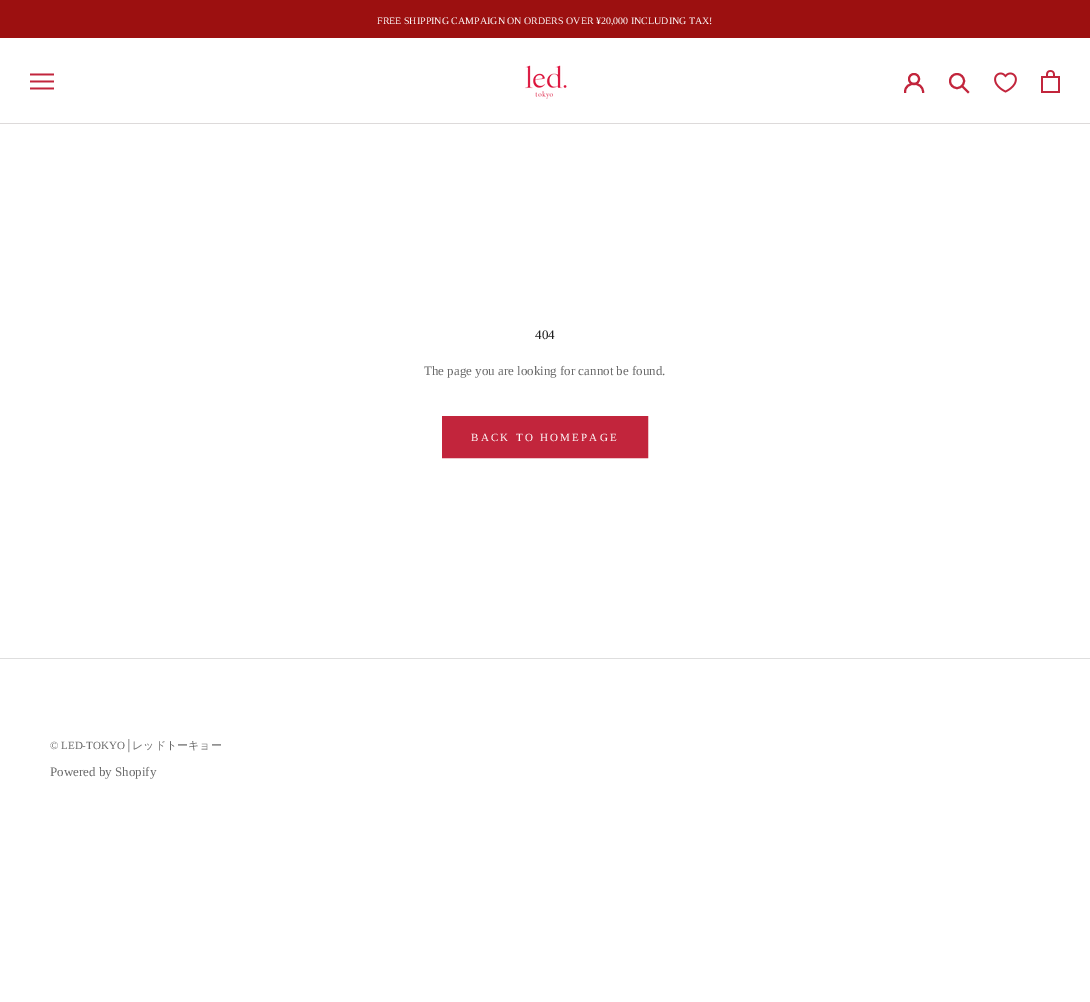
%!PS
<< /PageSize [1090 1002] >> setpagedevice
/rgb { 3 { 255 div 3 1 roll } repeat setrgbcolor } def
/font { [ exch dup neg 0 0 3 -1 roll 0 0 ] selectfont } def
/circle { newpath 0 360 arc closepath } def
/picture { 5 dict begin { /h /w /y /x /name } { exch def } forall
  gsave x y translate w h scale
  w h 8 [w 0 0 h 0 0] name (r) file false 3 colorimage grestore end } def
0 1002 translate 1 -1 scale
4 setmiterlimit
255 255 255 rgb
0 0 1090 1002 rectfill
156 16 16 rgb
0 0 1090 38 rectfill
221 218 218 rgb
0 123 1090 1 rectfill
(img/1.rgb) 30 73 24 17 picture
(img/2.rgb) 525 65 42 34 picture
194 37 60 rgb
2 setlinewidth
2 setlinecap
905 92 moveto 905 81 923 81 923 92 curveto stroke
0 setlinecap
914 79 5 circle stroke
2 setlinecap
968 92 moveto 962.5 86.5 lineto stroke
0 setlinecap
957 81 7 circle stroke
(img/3.rgb) 994 72 23 21 picture
(img/4.rgb) 1041 70 19 23 picture
1 setlinewidth
442.5 416.5 205 41 rectstroke
443 417 204 40 rectfill
222 222 222 rgb
0 658 1090 1 rectfill
/LiberationSerif-Regular 10 font
255 255 255 rgb
377 24 moveto (FREE SHIPPING CAMPAIGN ON ORDERS OVER ¥20,000 INCLUDING TAX!) show
/LiberationSerif-Regular 13 font
33 33 33 rgb
535 339 moveto (404) show
106 106 106 rgb
424 375 moveto (The page you are looking for cannot be found.) show
/LiberationSerif-Regular 11 font
255 255 255 rgb
471 441 moveto 2.25 0 (BACK TO HOMEPAGE) ashow
106 106 106 rgb
50 749 moveto (© LED-TOKYO│) show
/WenQuanYiZenHei-Medium 11 font
132 749 moveto (レッドトーキョー) show
/LiberationSerif-Regular 13 font
50 776 moveto (Powered by Shopify) show
showpage
